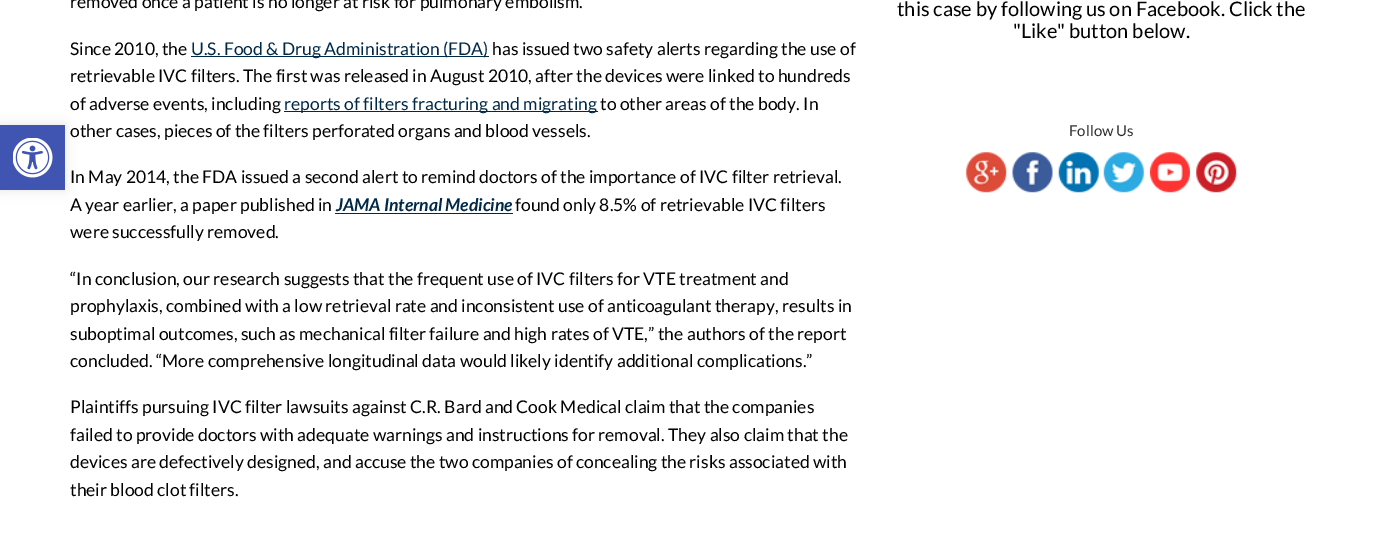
%!PS
<< /PageSize [1390 556] /PageUsesTransparency true >> setpagedevice
/rgb { 3 { 255 div 3 1 roll } repeat setrgbcolor } def
/font { [ exch dup neg 0 0 3 -1 roll 0 0 ] selectfont } def
/alpha { dup .setfillconstantalpha .setstrokeconstantalpha } def
/roundrect { 5 dict begin { /r /h /w /y /x } { exch def } forall
  x r add y moveto x w add y 2 copy h add r arct x w add y h add x 1 index r arct
  x y h add x y r arct x y 2 copy exch w add exch r arct closepath end } def
/shadow { 12 dict begin { /a /b /q /h /w /y /x } { exch def } forall gsave /was 0 def
  9 -2 -9 { dup b mul 4 div /e exch def 1 sub .425 mul 2.718 exch exp 1 add a .99 .min exch div /now exch def
    1 1 now sub 1 was sub div sub alpha /was now def
    w h .min e 2 mul add 0 gt { x e sub y e sub w e 2 mul add h e 2 mul add
      q e add b .6 mul add w h .min 2 div e add .min 0 .max roundrect fill } if } for grestore end } def
/picture { 5 dict begin { /h /w /y /x /name } { exch def } forall
  gsave x y translate w h scale
  w h 8 [w 0 0 h 0 0] name (r) file false 3 colorimage grestore end } def
0 .pushpdf14devicefilter
0 556 translate 1 -1 scale
4 setmiterlimit
255 255 255 rgb
0 0 1390 556 rectfill
0 0 0 rgb
0 125 65 65 0 6 0.1 shadow
64 84 178 rgb
0 125 65 65 rectfill
(img/1.rgb) 13 138 40 40 picture
[
  [191 56 298 1 0 41 72]
  [284 111 314 1 0 41 72]
  [335 213 178 1 0 41 72]
] { aload pop rgb rectfill } forall
(img/2.rgb) 966 152 41 41 picture
(img/3.rgb) 1012 152 41 41 picture
(img/4.rgb) 1058 152 41 41 picture
(img/5.rgb) 1103 152 41 41 picture
(img/6.rgb) 1150 152 40 41 picture
(img/7.rgb) 1196 152 41 41 picture
/Lato-Regular 17.5 font
0 0 0 rgb
70 8 moveto (removed once a patient is no longer at risk for pulmonary embolism.) show
70 55 moveto (Since 2010, the) show
0 41 72 rgb
191 55 moveto (U.S. Food & Drug Administration \(FDA\)) show
0 0 0 rgb
[
  [(has issued two safety alerts regarding the use of) 492 55]
  [(retrievable IVC filters. The first was released in August 2010, after the devices were linked to hundreds) 70 82]
  [(of adverse events, including) 70 110]
] { aload pop moveto show } forall
0 41 72 rgb
284 110 moveto (reports of filters fracturing and migrating) show
0 0 0 rgb
[
  [(to other areas of the body. In) 600 110]
  [(other cases, pieces of the filters perforated organs and blood vessels.) 70 137]
  [(In May 2014, the FDA issued a second alert to remind doctors of the importance of IVC filter retrieval.) 70 183]
  [(A year earlier, a paper published in) 70 211]
] { aload pop moveto show } forall
/Lato-BoldItalic 17.5 font
0 41 72 rgb
336 211 moveto (JAMA Internal Medicine) show
/Lato-Regular 17.5 font
0 0 0 rgb
[
  [(found only 8.5% of retrievable IVC filters) 515 211]
  [(were successfully removed.) 70 238]
  [(“In conclusion, our research suggests that the frequent use of IVC filters for VTE treatment and) 70 285]
  [(prophylaxis, combined with a low retrieval rate and inconsistent use of anticoagulant therapy, results in) 70 312]
  [(suboptimal outcomes, such as mechanical filter failure and high rates of VTE,” the authors of the report) 70 340]
  [(concluded. “More comprehensive longitudinal data would likely identify additional complications.”) 70 367]
  [(Plaintiffs pursuing IVC filter lawsuits against C.R. Bard and Cook Medical claim that the companies) 70 413]
  [(failed to provide doctors with adequate warnings and instructions for removal. They also claim that the) 70 441]
  [(devices are defectively designed, and accuse the two companies of concealing the risks associated with) 70 468]
  [(their blood clot filters.) 70 496]
] { aload pop moveto show } forall
/Lato-Regular 20 font
897 16 moveto (this case by following us on Facebook. Click the) show
1013 38 moveto ("Like" button below.) show
/Lato-Regular 15 font
48 48 48 rgb
1069 136 moveto (Follow Us) show
.poppdf14devicefilter showpage
